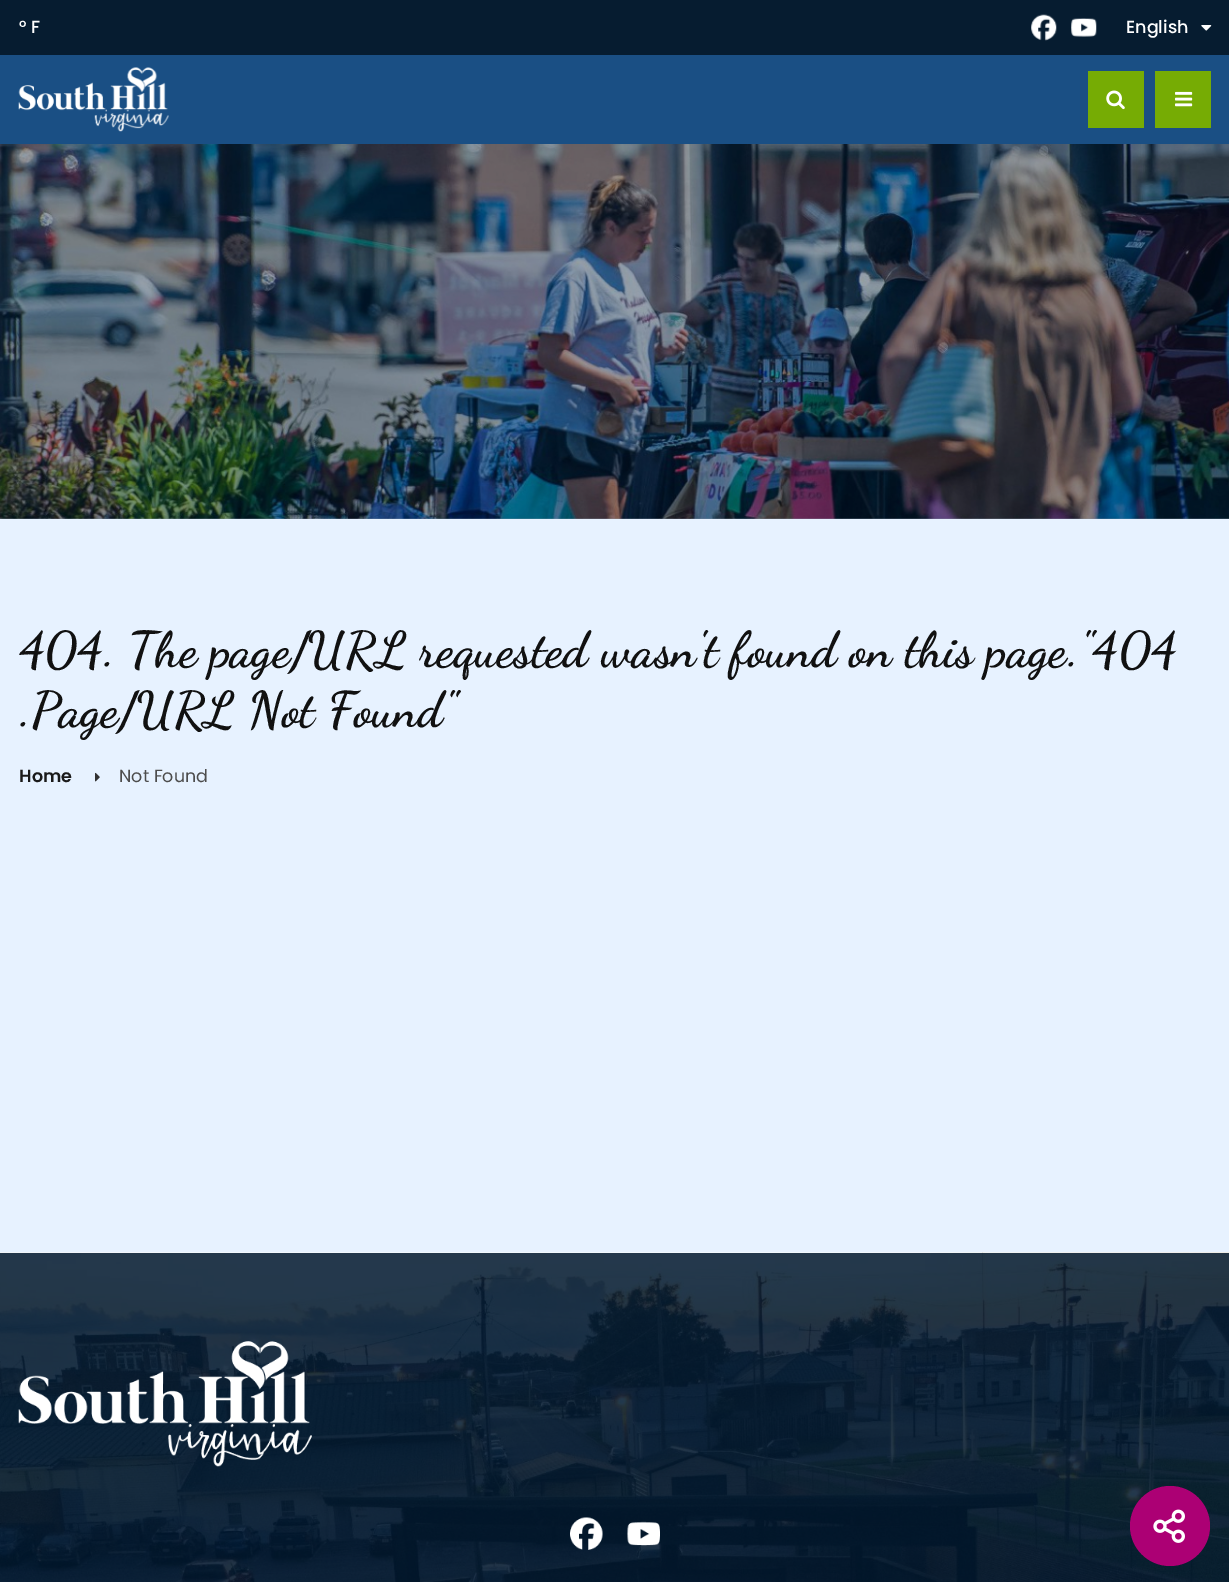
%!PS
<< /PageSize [1229 1582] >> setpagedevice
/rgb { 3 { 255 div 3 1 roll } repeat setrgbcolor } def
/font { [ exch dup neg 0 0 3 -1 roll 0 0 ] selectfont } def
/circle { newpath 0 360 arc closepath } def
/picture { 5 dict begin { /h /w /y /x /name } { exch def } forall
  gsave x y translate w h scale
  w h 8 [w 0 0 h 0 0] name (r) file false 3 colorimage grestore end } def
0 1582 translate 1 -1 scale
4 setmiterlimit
231 242 255 rgb
0 0 1229 1582 rectfill
6 28 48 rgb
0 0 1229 55 rectfill
(img/1.rgb) 1031 14 26 27 picture
(img/2.rgb) 1071 18 26 19 picture
(img/3.rgb) 1201 25 11 6 picture
26 79 132 rgb
0 55 1229 89 rectfill
(img/4.rgb) 18 67 151 65 picture
118 172 4 rgb
1088 71 56 57 rectfill
(img/5.rgb) 1106 90 19 20 picture
1155 71 56 57 rectfill
(img/6.rgb) 1175 91 18 16 picture
(img/7.rgb) 0 144 1229 375 picture
(img/8.rgb) 95 772 5 10 picture
(img/9.rgb) 0 1252 1229 330 picture
(img/10.rgb) 18 1341 294 126 picture
(img/11.rgb) 570 1517 33 33 picture
(img/12.rgb) 627 1521 33 25 picture
172 0 116 rgb
1170 1526 40 circle fill
(img/13.rgb) 1153 1509 32 34 picture
/Poppins-Medium 17.5 font
255 255 255 rgb
19 33 moveto (° F) show
1126 33 moveto (English) show
/DancingScript-Bold 50 font
17 17 17 rgb
19 666 moveto (404. The page/URL requested wasn't found on this page."404) show
19 726 moveto (.Page/URL Not Found") show
/Poppins-SemiBold 17.5 font
26 26 26 rgb
19 782 moveto (Home) show
/Poppins-Regular 17.5 font
77 77 77 rgb
119 782 moveto (Not Found) show
showpage
